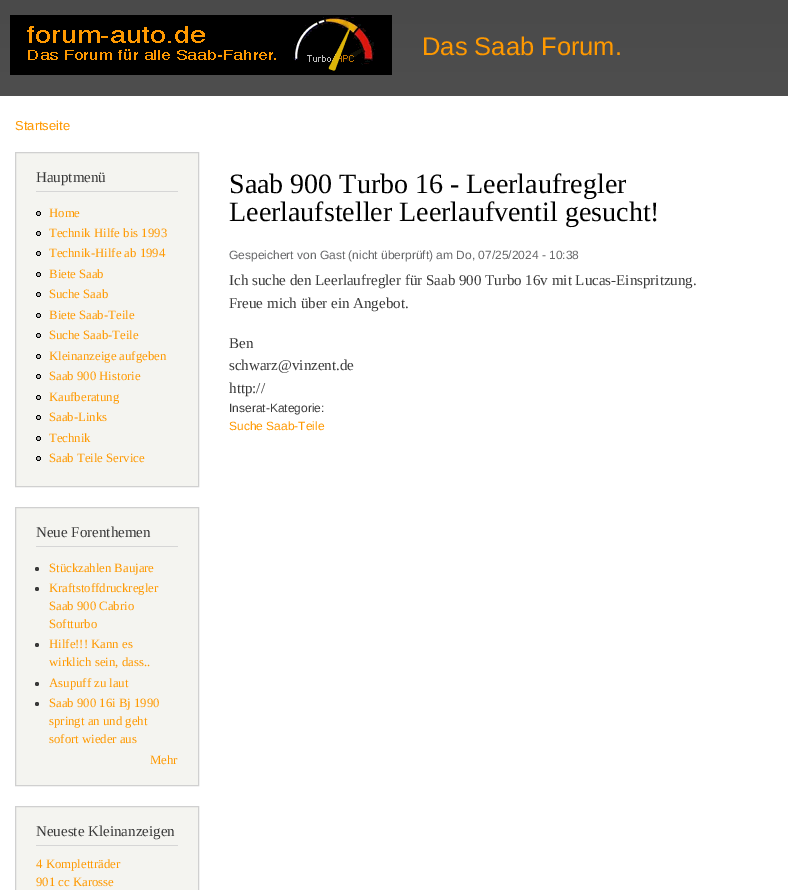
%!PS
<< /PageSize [788 890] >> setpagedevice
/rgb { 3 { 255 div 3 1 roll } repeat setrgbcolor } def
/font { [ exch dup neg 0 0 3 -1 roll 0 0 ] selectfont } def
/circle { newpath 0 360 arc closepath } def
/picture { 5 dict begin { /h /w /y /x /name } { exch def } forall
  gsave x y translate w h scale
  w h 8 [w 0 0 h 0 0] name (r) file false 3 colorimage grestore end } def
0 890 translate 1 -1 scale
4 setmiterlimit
255 255 255 rgb
0 0 788 890 rectfill
gsave 0 0 moveto 788 0 lineto 788 96 lineto 0 96 lineto closepath clip newpath
<< /ShadingType 2 /ColorSpace /DeviceRGB /Coords [480 0 480 96] /Extend [true true] /Function << /FunctionType 2 /Domain [0 1] /C0 [0.29 0.29 0.29] /C1 [0.306 0.306 0.306] /N 1 >> >> shfill grestore
(img/1.rgb) 10 15 382 60 picture
244 244 240 rgb
15.5 152.5 moveto 198.5 152.5 lineto 198.5 486.5 lineto 15.5 486.5 lineto closepath gsave fill grestore
208 208 208 rgb
stroke
214 214 214 rgb
36 191 142 1 rectfill
(img/2.rgb) 36 211 5 5 picture
(img/2.rgb) 36 231 5 5 picture
(img/2.rgb) 36 251 5 5 picture
(img/2.rgb) 36 272 5 5 picture
(img/2.rgb) 36 292 5 5 picture
(img/2.rgb) 36 313 5 5 picture
(img/2.rgb) 36 333 5 5 picture
(img/2.rgb) 36 354 5 5 picture
(img/2.rgb) 36 374 5 5 picture
(img/2.rgb) 36 395 5 5 picture
(img/2.rgb) 36 415 5 5 picture
(img/2.rgb) 36 436 5 5 picture
(img/2.rgb) 36 456 5 5 picture
244 244 240 rgb
15.5 507.5 moveto 198.5 507.5 lineto 198.5 785.5 lineto 15.5 785.5 lineto closepath gsave fill grestore
208 208 208 rgb
stroke
214 214 214 rgb
36 546 142 1 rectfill
58 58 58 rgb
37 569 2 circle fill
37 589 2 circle fill
37 645 2 circle fill
37 684 2 circle fill
37 704 2 circle fill
244 244 240 rgb
15.5 806.5 moveto 198.5 806.5 lineto 198.5 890.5 lineto 15.5 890.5 lineto closepath gsave fill grestore
208 208 208 rgb
stroke
214 214 214 rgb
36 845 142 1 rectfill
/LiberationSans-Regular 25.5 font
255 153 0 rgb
422 55 moveto (Das Saab Forum.) show
/LiberationSans-Regular 13 font
15 130 moveto (Startseite) show
/LiberationSerif-Regular 15 font
58 58 58 rgb
36 182 moveto (Hauptmenü) show
/LiberationSerif-Regular 12.75 font
255 153 0 rgb
[
  [(Home) 49 217]
  [(Technik Hilfe bis 1993) 49 237]
  [(Technik-Hilfe ab 1994) 49 257]
  [(Biete Saab) 49 278]
  [(Suche Saab) 49 298]
  [(Biete Saab-Teile) 49 319]
  [(Suche Saab-Teile) 49 339]
  [(Kleinanzeige aufgeben) 49 360]
  [(Saab 900 Historie) 49 380]
  [(Kaufberatung) 49 401]
  [(Saab-Links) 49 421]
  [(Technik) 49 442]
  [(Saab Teile Service) 49 462]
] { aload pop moveto show } forall
/LiberationSerif-Regular 15 font
58 58 58 rgb
36 537 moveto (Neue Forenthemen) show
/LiberationSerif-Regular 12.75 font
255 153 0 rgb
[
  [(Stückzahlen Baujare) 49 572]
  [(Kraftstoffdruckregler) 49 592]
  [(Saab 900 Cabrio) 49 610]
  [(Softturbo) 49 628]
  [(Hilfe!!! Kann es) 49 648]
  [(wirklich sein, dass..) 49 666]
  [(Asupuff zu laut) 49 687]
  [(Saab 900 16i Bj 1990) 49 707]
  [(springt an und geht) 49 725]
  [(sofort wieder aus) 49 743]
  [(Mehr) 150 764]
] { aload pop moveto show } forall
/LiberationSerif-Regular 15 font
58 58 58 rgb
36 836 moveto (Neueste Kleinanzeigen) show
/LiberationSerif-Regular 12.75 font
255 153 0 rgb
36 868 moveto (4 Kompletträder) show
36 886 moveto (901 cc Karosse) show
/LiberationSerif-Regular 28 font
0 0 0 rgb
229 193 moveto (Saab 900 Turbo 16 - Leerlaufregler) show
229 221 moveto (Leerlaufsteller Leerlaufventil gesucht!) show
/LiberationSans-Regular 12 font
104 105 107 rgb
229 259 moveto (Gespeichert von Gast \(nicht überprüft\) am Do, 07/25/2024 - 10:38) show
/LiberationSerif-Regular 15 font
58 58 58 rgb
[
  [(Ich suche den Leerlaufregler für Saab 900 Turbo 16v mit Lucas-Einspritzung.) 229 285]
  [(Freue mich über ein Angebot.) 229 308]
  [(Ben) 229 348]
  [(schwarz@vinzent.de) 229 370]
  [(http://) 229 393]
] { aload pop moveto show } forall
/LiberationSans-Regular 12 font
229 412 moveto (Inserat-Kategorie:) show
255 153 0 rgb
229 430 moveto (Suche Saab-Teile) show
showpage
